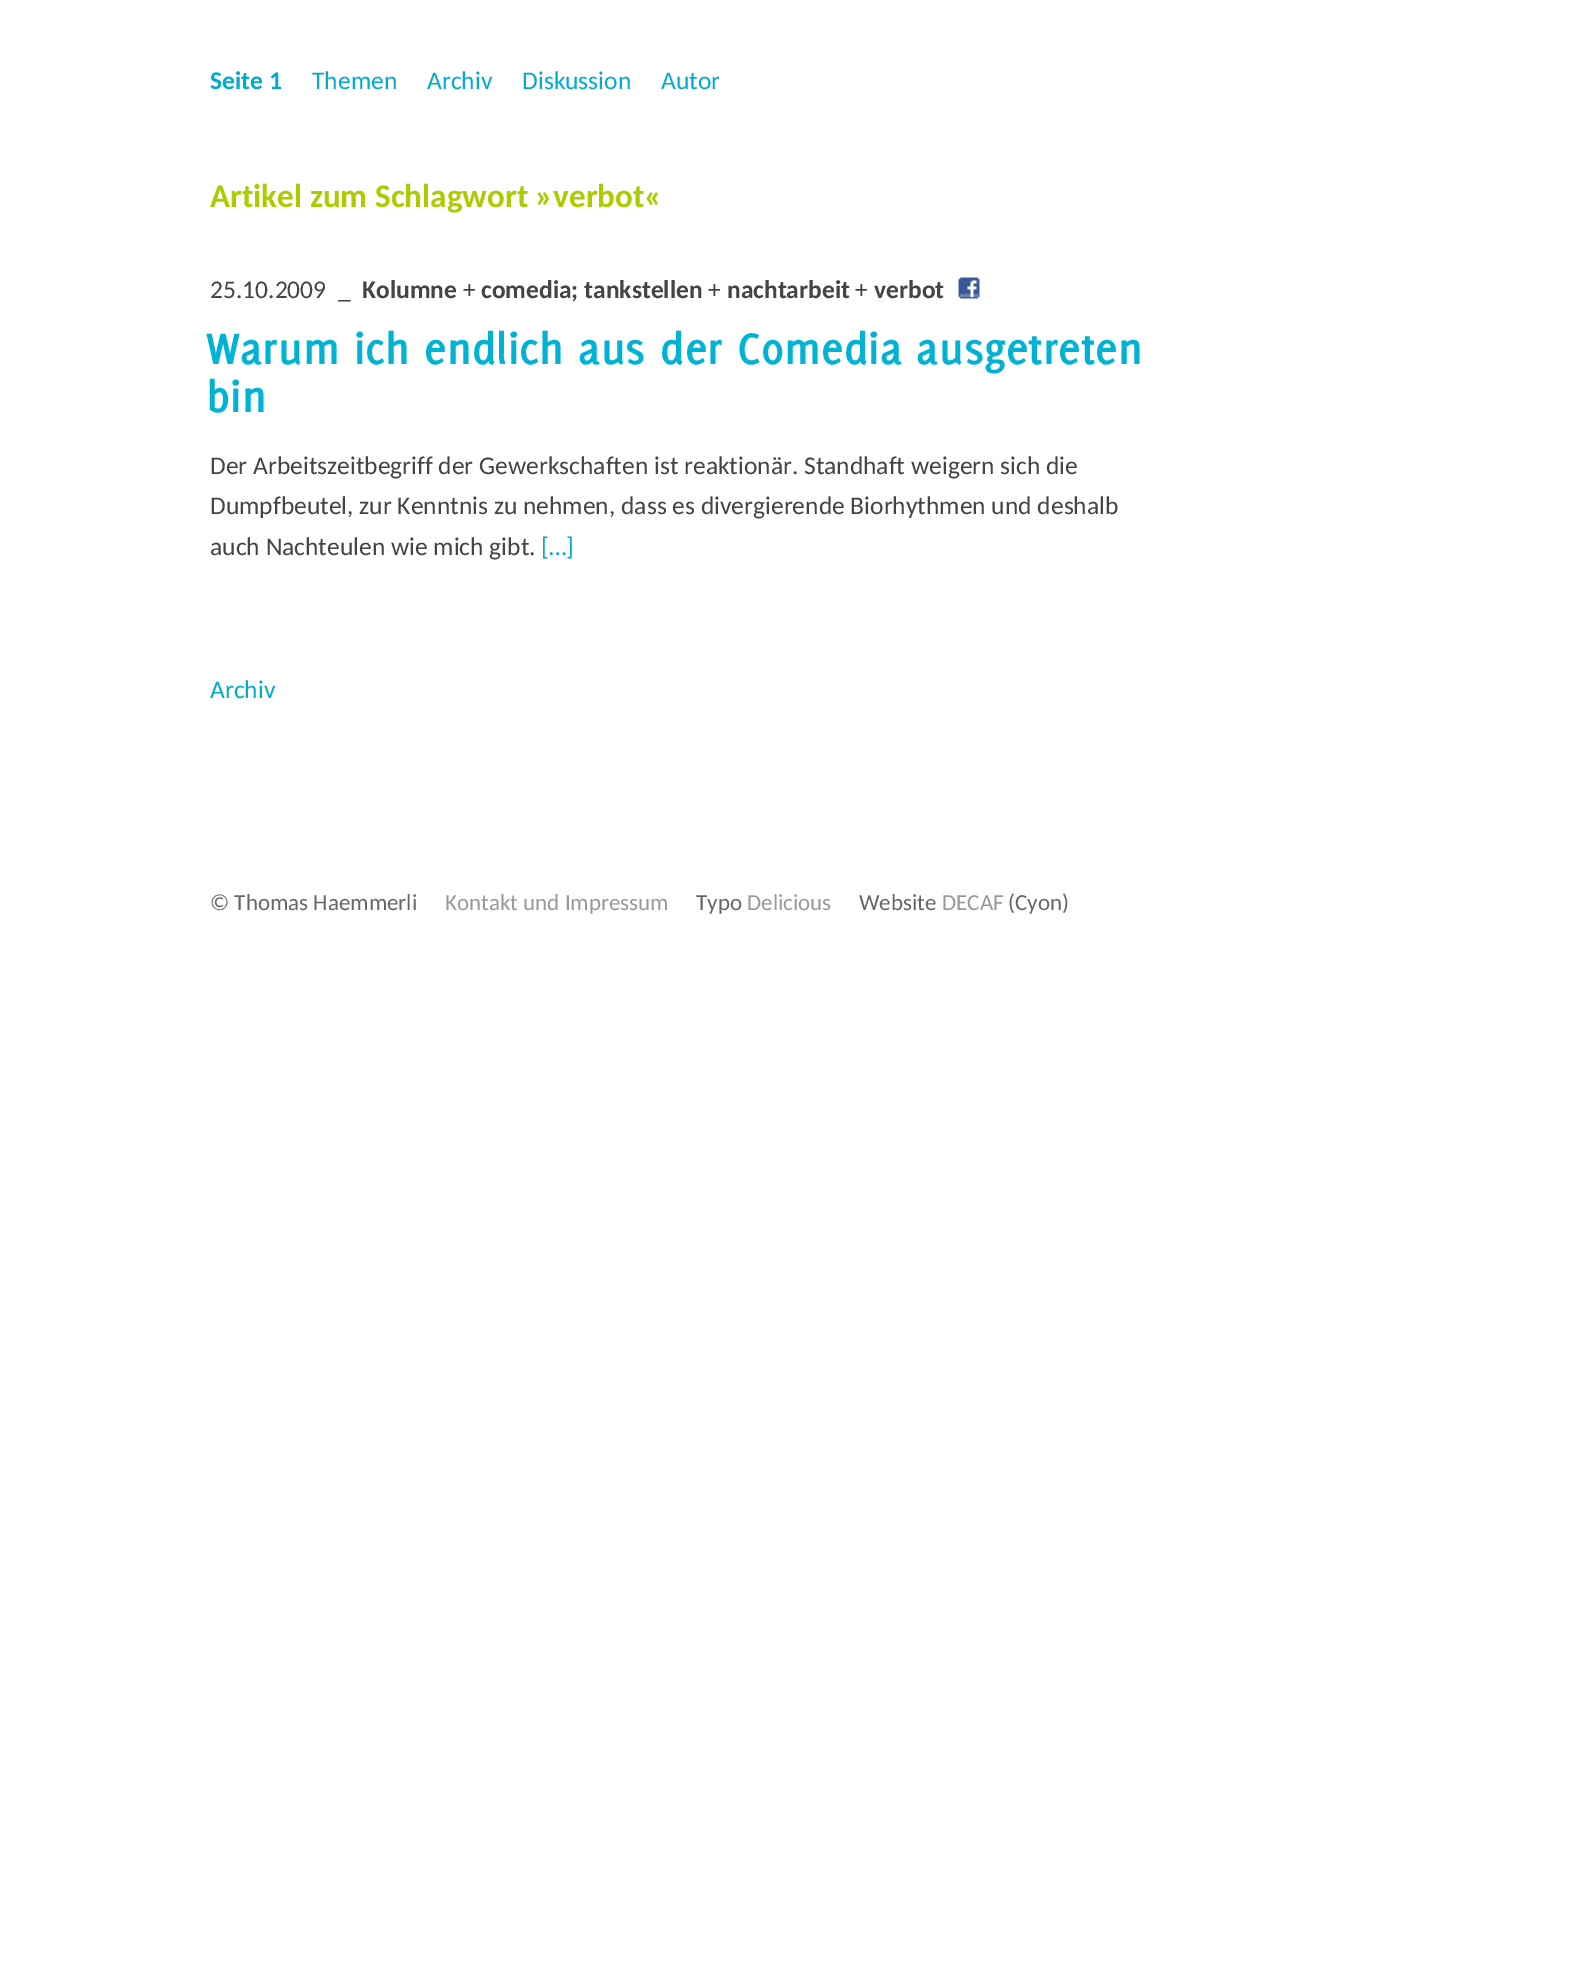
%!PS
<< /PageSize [1576 1961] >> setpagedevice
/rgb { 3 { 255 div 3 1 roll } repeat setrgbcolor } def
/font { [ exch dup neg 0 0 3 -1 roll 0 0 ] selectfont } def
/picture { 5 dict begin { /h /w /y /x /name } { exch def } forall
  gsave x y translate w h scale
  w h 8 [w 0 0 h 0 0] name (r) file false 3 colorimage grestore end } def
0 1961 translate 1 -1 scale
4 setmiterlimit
255 255 255 rgb
0 0 1576 1961 rectfill
(img/1.rgb) 958 277 22 22 picture
/Carlito-Bold 25.5 font
0 171 204 rgb
210 89 moveto (Seite 1) show
/Carlito-Regular 25.5 font
[
  [(Themen) 312 89]
  [(Archiv) 427 89]
  [(Diskussion) 522 89]
  [(Autor) 661 89]
] { aload pop moveto show } forall
/Carlito-Bold 33.1 font
172 204 0 rgb
210 207 moveto (Artikel zum Schlagwort »verbot«) show
/Carlito-Regular 25.5 font
68 68 68 rgb
210 298 moveto (25.10.2009  _) show
/Carlito-Bold 25.5 font
362 298 moveto (Kolumne) show
/Carlito-Regular 25.5 font
463 298 moveto (+) show
/Carlito-Bold 25.5 font
481 298 moveto (comedia; tankstellen) show
/Carlito-Regular 25.5 font
708 298 moveto (+) show
/Carlito-Bold 25.5 font
727 298 moveto (nachtarbeit) show
/Carlito-Regular 25.5 font
855 298 moveto (+) show
/Carlito-Bold 25.5 font
874 298 moveto (verbot) show
/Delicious-Bold 48 font
0 179 212 rgb
206 364 moveto (Warum ich endlich aus der Comedia ausgetreten) show
206 412 moveto (bin) show
/Carlito-Regular 25.5 font
68 68 68 rgb
[
  [(Der Arbeitszeitbegriff der Gewerkschaften ist reaktionär. Standhaft weigern sich die) 210 474]
  [(Dumpfbeutel, zur Kenntnis zu nehmen, dass es divergierende Biorhythmen und deshalb) 210 514]
  [(auch Nachteulen wie mich gibt.) 210 555]
] { aload pop moveto show } forall
0 171 204 rgb
541 555 moveto ([…]) show
210 698 moveto (Archiv) show
/Carlito-Regular 23 font
102 102 102 rgb
210 910 moveto (© Thomas Haemmerli) show
153 153 153 rgb
445 910 moveto (Kontakt und Impressum) show
102 102 102 rgb
696 910 moveto (Typo) show
153 153 153 rgb
747 910 moveto (Delicious) show
102 102 102 rgb
859 910 moveto (Website) show
153 153 153 rgb
942 910 moveto (DECAF) show
102 102 102 rgb
1008 910 moveto (\(Cyon\)) show
showpage
